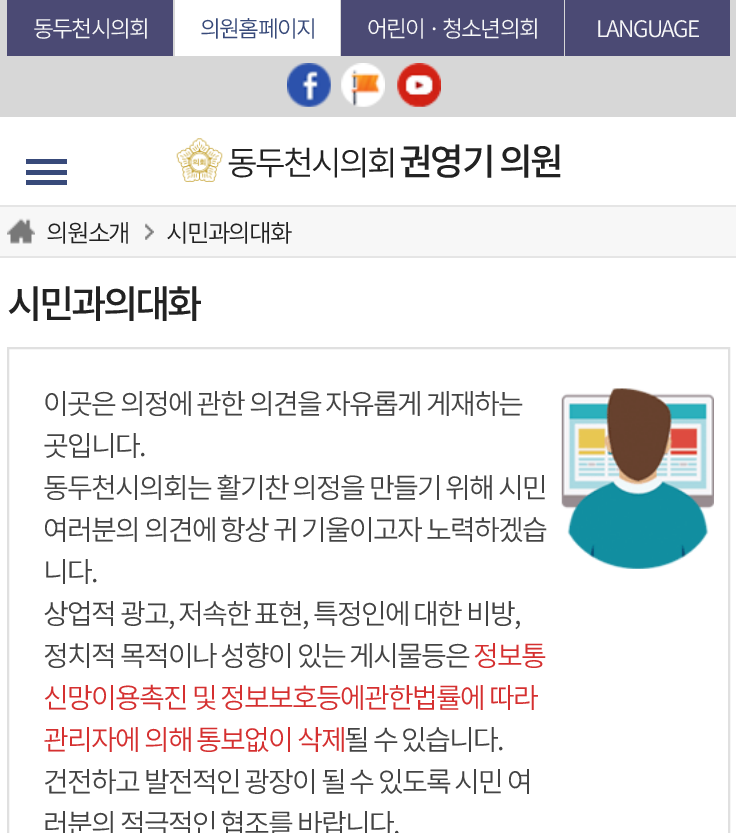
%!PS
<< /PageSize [736 833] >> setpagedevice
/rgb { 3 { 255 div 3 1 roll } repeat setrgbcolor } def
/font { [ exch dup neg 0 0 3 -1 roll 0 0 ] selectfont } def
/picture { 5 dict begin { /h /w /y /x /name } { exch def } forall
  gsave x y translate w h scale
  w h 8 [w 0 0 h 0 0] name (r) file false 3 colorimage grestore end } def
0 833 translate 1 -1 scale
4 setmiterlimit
255 255 255 rgb
0 0 736 833 rectfill
[
  [0 0 736 117 215 215 215]
  [7 0 166 56 75 74 116]
  [175 0 165 56 255 255 255]
  [341 0 223 56 75 74 116]
  [565 0 165 56 75 74 116]
] { aload pop rgb rectfill } forall
(img/1.rgb) 287 63 44 44 picture
(img/2.rgb) 341 63 44 44 picture
(img/3.rgb) 397 63 44 44 picture
[
  [26 159 41 5 56 74 122]
  [26 170 41 5 56 74 122]
  [26 180 41 5 56 74 122]
] { aload pop rgb rectfill } forall
(img/4.rgb) 176 138 47 44 picture
[
  [0 207 736 49 247 247 247]
  [0 205 736 2 229 229 229]
  [0 256 736 2 229 229 229]
] { aload pop rgb rectfill } forall
(img/5.rgb) 7 218 28 26 picture
(img/6.rgb) 145 223 9 17 picture
224 224 224 rgb
2 setlinewidth
8 348 721 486 rectstroke
(img/7.rgb) 561 388 153 181 picture
/NotoSansKR-Light 22.75 font
246 246 247 rgb
33 37 moveto -1.75 0 (동두천시의회) ashow
56 74 122 rgb
200 37 moveto -1.75 0 (의원홈페이지) ashow
246 246 247 rgb
367 37 moveto -1.75 0 (어린이 · 청소년의회) ashow
596 37 moveto -1.75 0 (LANGUAGE) ashow
/NotoSansKR-Light 33.25 font
34 34 34 rgb
227 175 moveto -2.5 0 (동두천시의회) ashow
/NotoSansKR-Medium 36.75 font
399 175 moveto -2.5 0 (권영기 의원) ashow
/NotoSansKR-Light 24.5 font
46 242 moveto -1.75 0 (의원소개) ashow
166 242 moveto -1.75 0 (시민과의대화) ashow
/NotoSansKR-Medium 38.5 font
7 318 moveto -3.5 0 (시민과의대화) ashow
/NotoSansKR-Light 28 font
68 68 68 rgb
43 414 moveto -1.75 0 (이곳은 의정에 관한 의견을 자유롭게 게재하는) ashow
43 456 moveto -1.75 0 (곳입니다.) ashow
43 498 moveto -1.75 0 (동두천시의회는 활기찬 의정을 만들기 위해 시민) ashow
43 540 moveto -1.75 0 (여러분의 의견에 항상 귀 기울이고자 노력하겠습) ashow
43 582 moveto -1.75 0 (니다.) ashow
43 624 moveto -1.75 0 (상업적 광고, 저속한 표현, 특정인에 대한 비방,) ashow
43 666 moveto -1.75 0 (정치적 목적이나 성향이 있는 게시물등은) ashow
213 48 48 rgb
473 666 moveto -1.75 0 (정보통) ashow
43 708 moveto -1.75 0 (신망이용촉진 및 정보보호등에관한법률에 따라) ashow
43 750 moveto -1.75 0 (관리자에 의해 통보없이 삭제) ashow
68 68 68 rgb
344 750 moveto -1.75 0 (될 수 있습니다.) ashow
43 792 moveto -1.75 0 (건전하고 발전적인 광장이 될 수 있도록 시민 여) ashow
43 834 moveto -1.75 0 (러분의 적극적인 협조를 바랍니다.) ashow
showpage
